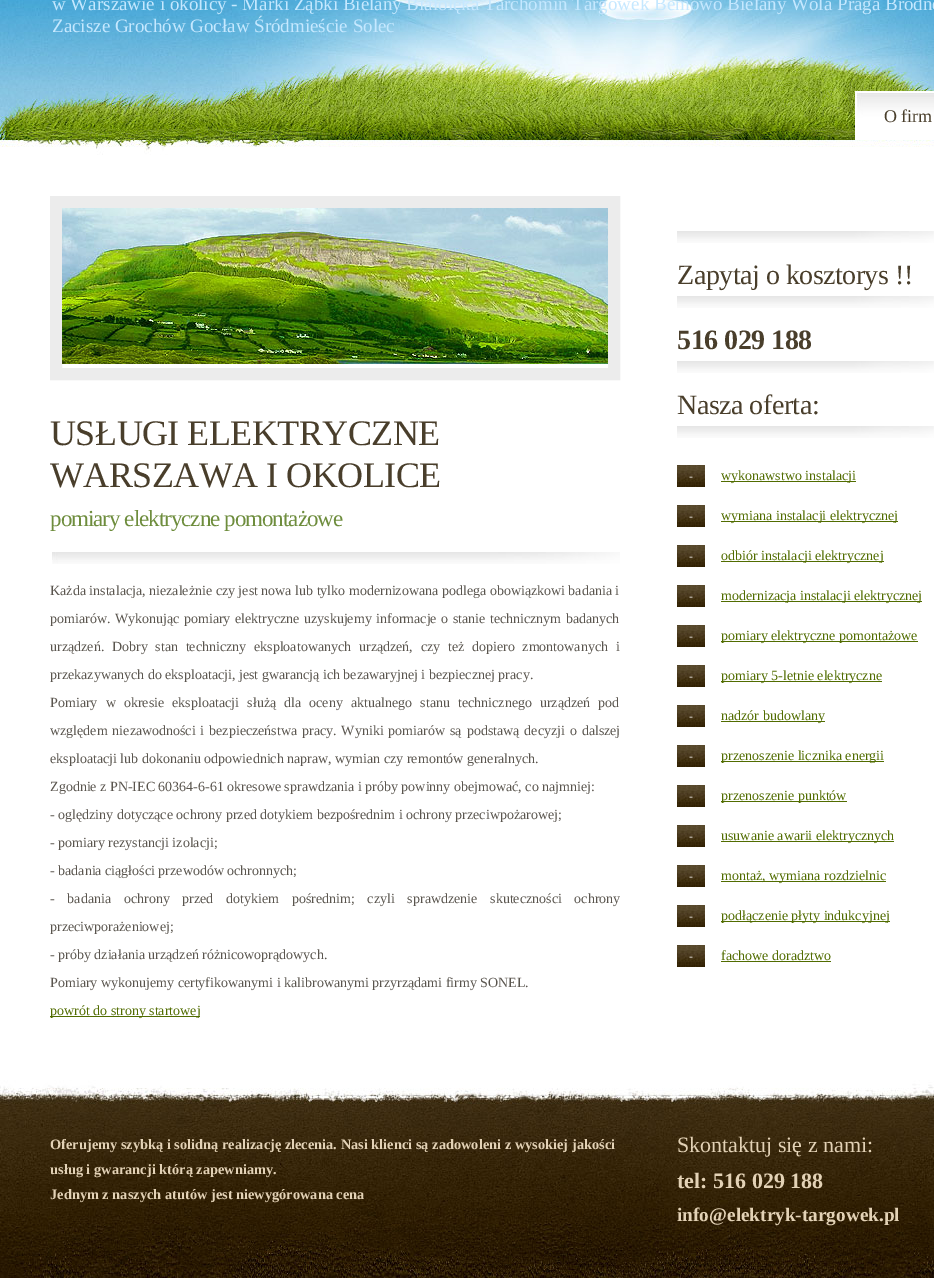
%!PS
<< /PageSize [934 1278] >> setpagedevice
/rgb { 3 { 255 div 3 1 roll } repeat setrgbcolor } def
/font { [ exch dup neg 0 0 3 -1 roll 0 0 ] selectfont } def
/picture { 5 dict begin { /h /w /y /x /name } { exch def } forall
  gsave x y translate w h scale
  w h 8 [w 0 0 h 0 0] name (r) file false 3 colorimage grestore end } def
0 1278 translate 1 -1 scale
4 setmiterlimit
255 255 255 rgb
0 0 934 1278 rectfill
(img/1.rgb) 0 0 934 91 picture
(img/2.rgb) 0 91 934 65 picture
(img/3.rgb) 855 91 79 49 picture
236 236 236 rgb
12 setlinewidth
56 202 558 172 rectstroke
(img/4.rgb) 62 208 546 156 picture
(img/5.rgb) 52 552 568 12 picture
81 108 0 rgb
50 1016 150 1 rectfill
(img/6.rgb) 677 231 257 12 picture
(img/6.rgb) 677 296 257 12 picture
(img/6.rgb) 677 361 257 12 picture
(img/6.rgb) 677 426 257 12 picture
(img/7.rgb) 677 465 28 22 picture
721 481 135 1 rectfill
(img/7.rgb) 677 505 28 22 picture
721 521 177 1 rectfill
(img/7.rgb) 677 545 28 22 picture
721 561 163 1 rectfill
(img/7.rgb) 677 585 28 22 picture
721 601 201 1 rectfill
(img/7.rgb) 677 625 28 22 picture
721 641 197 1 rectfill
(img/7.rgb) 677 665 28 22 picture
721 681 161 1 rectfill
(img/7.rgb) 677 705 28 22 picture
721 721 104 1 rectfill
(img/7.rgb) 677 745 28 22 picture
721 761 163 1 rectfill
(img/7.rgb) 677 785 28 22 picture
721 801 126 1 rectfill
(img/7.rgb) 677 825 28 22 picture
721 841 173 1 rectfill
(img/7.rgb) 677 865 28 22 picture
721 881 165 1 rectfill
(img/7.rgb) 677 905 28 22 picture
721 921 169 1 rectfill
(img/7.rgb) 677 945 28 22 picture
721 961 110 1 rectfill
(img/8.rgb) 0 1072 934 206 picture
/LiberationSerif-Regular 19 font
197 232 255 rgb
52 10 moveto (w Warszawie i okolicy - Marki Ząbki Bielany Białołęka Tarchomin Targówek Bemowo Bielany Wola Praga Bródno) show
52 32 moveto (Zacisze Grochów Gocław Śródmieście Solec) show
/LiberationSerif-Regular 18 font
73 62 43 rgb
884 122 moveto (O firm) show
/LiberationSerif-Regular 36 font
50 445 moveto -0.5 0 (USŁUGI ELEKTRYCZNE) ashow
50 487 moveto -0.5 0 (WARSZAWA I OKOLICE) ashow
/LiberationSerif-Regular 23 font
110 141 61 rgb
50 526 moveto -1 0 (pomiary elektryczne pomontażowe) ashow
/LiberationSerif-Regular 14 font
90 85 78 rgb
50 595 moveto (Każda instalacja, niezależnie czy jest nowa lub tylko modernizowana podlega obowiązkowi badania i) show
50 623 moveto 1 0 32 (pomiarów. Wykonując pomiary elektryczne uzyskujemy informacje o stanie technicznym badanych) widthshow
50 651 moveto 4.25 0 32 (urządzeń. Dobry stan techniczny eksploatowanych urządzeń, czy też dopiero zmontowanych i) widthshow
50 679 moveto (przekazywanych do eksploatacji, jest gwarancją ich bezawaryjnej i bezpiecznej pracy.) show
50 707 moveto 4.6 0 32 (Pomiary w okresie eksploatacji służą dla oceny aktualnego stanu technicznego urządzeń pod) widthshow
50 735 moveto 1.4 0 32 (względem niezawodności i bezpieczeństwa pracy. Wyniki pomiarów są podstawą decyzji o dalszej) widthshow
[
  [(eksploatacji lub dokonaniu odpowiednich napraw, wymian czy remontów generalnych.) 50 763]
  [(Zgodnie z PN-IEC 60364-6-61 okresowe sprawdzania i próby powinny obejmować, co najmniej:) 50 791]
  [(- oględziny dotyczące ochrony przed dotykiem bezpośrednim i ochrony przeciwpożarowej;) 50 819]
  [(- pomiary rezystancji izolacji;) 50 847]
  [(- badania ciągłości przewodów ochronnych;) 50 875]
] { aload pop moveto show } forall
50 903 moveto 9.25 0 32 (- badania ochrony przed dotykiem pośrednim; czyli sprawdzenie skuteczności ochrony) widthshow
[
  [(przeciwporażeniowej;) 50 931]
  [(- próby działania urządzeń różnicowoprądowych.) 50 959]
  [(Pomiary wykonujemy certyfikowanymi i kalibrowanymi przyrządami firmy SONEL.) 50 987]
] { aload pop moveto show } forall
81 108 0 rgb
50 1015 moveto (powrót do strony startowej) show
/LiberationSerif-Regular 28 font
73 62 43 rgb
677 284 moveto -0.5 0 (Zapytaj o kosztorys !!) ashow
/LiberationSerif-Bold 28 font
677 349 moveto -0.5 0 (516 029 188) ashow
/LiberationSerif-Regular 28 font
677 414 moveto -0.5 0 (Nasza oferta:) ashow
/LiberationSerif-Regular 14 font
81 108 0 rgb
721 480 moveto (wykonawstwo instalacji) show
/LiberationSerif-Regular 12 font
255 255 255 rgb
689 480 moveto (-) show
/LiberationSerif-Regular 14 font
81 108 0 rgb
721 520 moveto (wymiana instalacji elektrycznej) show
/LiberationSerif-Regular 12 font
255 255 255 rgb
689 520 moveto (-) show
/LiberationSerif-Regular 14 font
81 108 0 rgb
721 560 moveto (odbiór instalacji elektrycznej) show
/LiberationSerif-Regular 12 font
255 255 255 rgb
689 560 moveto (-) show
/LiberationSerif-Regular 14 font
81 108 0 rgb
721 600 moveto (modernizacja instalacji elektrycznej) show
/LiberationSerif-Regular 12 font
255 255 255 rgb
689 600 moveto (-) show
/LiberationSerif-Regular 14 font
81 108 0 rgb
721 640 moveto (pomiary elektryczne pomontażowe) show
/LiberationSerif-Regular 12 font
255 255 255 rgb
689 640 moveto (-) show
/LiberationSerif-Regular 14 font
81 108 0 rgb
721 680 moveto (pomiary 5-letnie elektryczne) show
/LiberationSerif-Regular 12 font
255 255 255 rgb
689 680 moveto (-) show
/LiberationSerif-Regular 14 font
81 108 0 rgb
721 720 moveto (nadzór budowlany) show
/LiberationSerif-Regular 12 font
255 255 255 rgb
689 720 moveto (-) show
/LiberationSerif-Regular 14 font
81 108 0 rgb
721 760 moveto (przenoszenie licznika energii) show
/LiberationSerif-Regular 12 font
255 255 255 rgb
689 760 moveto (-) show
/LiberationSerif-Regular 14 font
81 108 0 rgb
721 800 moveto (przenoszenie punktów) show
/LiberationSerif-Regular 12 font
255 255 255 rgb
689 800 moveto (-) show
/LiberationSerif-Regular 14 font
81 108 0 rgb
721 840 moveto (usuwanie awarii elektrycznych) show
/LiberationSerif-Regular 12 font
255 255 255 rgb
689 840 moveto (-) show
/LiberationSerif-Regular 14 font
81 108 0 rgb
721 880 moveto (montaż, wymiana rozdzielnic) show
/LiberationSerif-Regular 12 font
255 255 255 rgb
689 880 moveto (-) show
/LiberationSerif-Regular 14 font
81 108 0 rgb
721 920 moveto (podłączenie płyty indukcyjnej) show
/LiberationSerif-Regular 12 font
255 255 255 rgb
689 920 moveto (-) show
/LiberationSerif-Regular 14 font
81 108 0 rgb
721 960 moveto (fachowe doradztwo) show
/LiberationSerif-Regular 12 font
255 255 255 rgb
689 960 moveto (-) show
/LiberationSerif-Bold 14.4 font
227 210 182 rgb
[
  [(Oferujemy szybką i solidną realizację zlecenia. Nasi klienci są zadowoleni z wysokiej jakości) 50 1149]
  [(usług i gwarancji którą zapewniamy.) 50 1174]
  [(Jednym z naszych atutów jest niewygórowana cena) 50 1199]
] { aload pop moveto show } forall
/LiberationSerif-Regular 22 font
677 1152 moveto (Skontaktuj się z nami:) show
/LiberationSerif-Bold 22 font
677 1188 moveto (tel: 516 029 188) show
/LiberationSerif-Bold 19.25 font
677 1221 moveto (info@elektryk-targowek.pl) show
showpage
